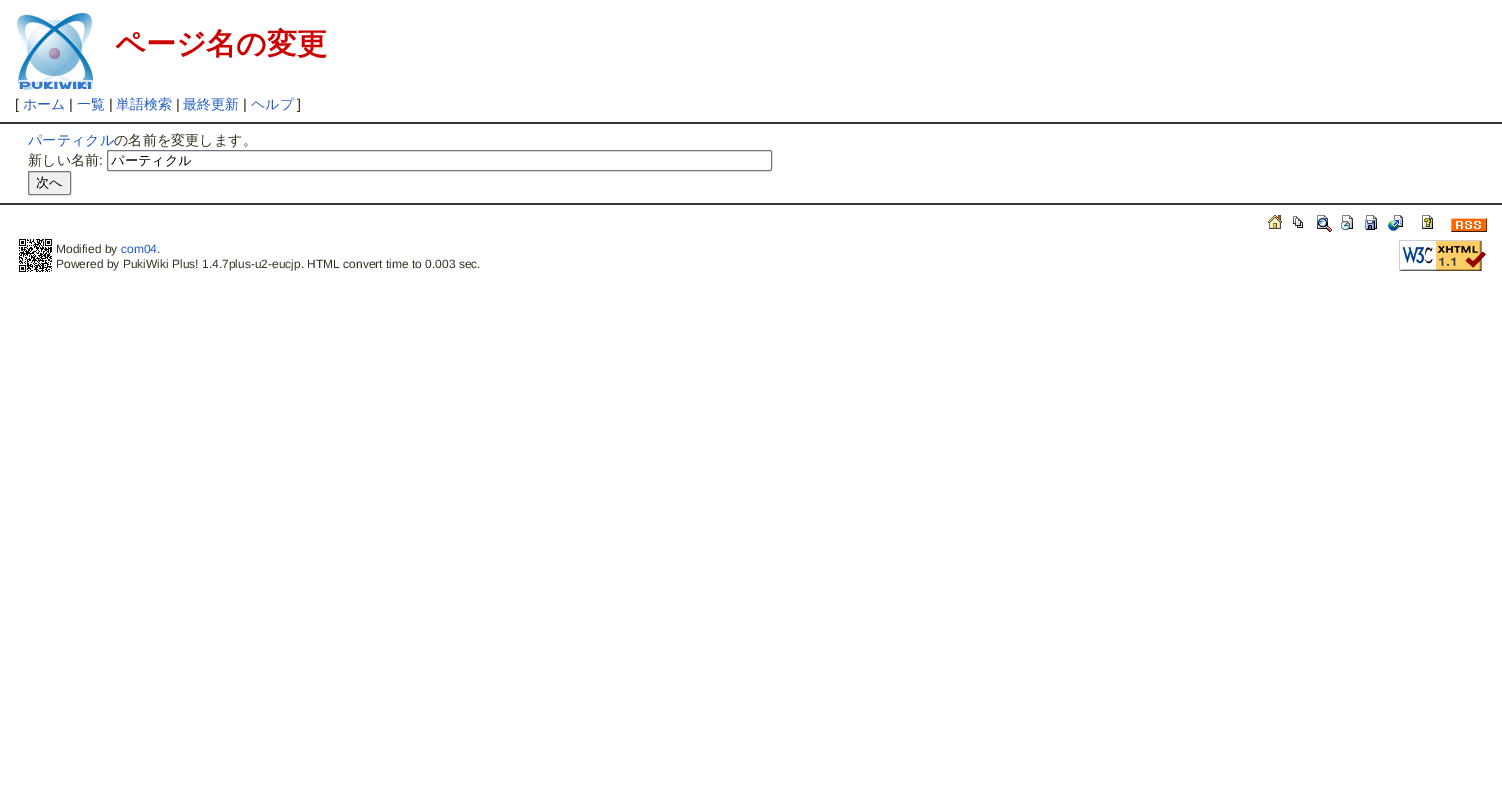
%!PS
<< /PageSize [1502 805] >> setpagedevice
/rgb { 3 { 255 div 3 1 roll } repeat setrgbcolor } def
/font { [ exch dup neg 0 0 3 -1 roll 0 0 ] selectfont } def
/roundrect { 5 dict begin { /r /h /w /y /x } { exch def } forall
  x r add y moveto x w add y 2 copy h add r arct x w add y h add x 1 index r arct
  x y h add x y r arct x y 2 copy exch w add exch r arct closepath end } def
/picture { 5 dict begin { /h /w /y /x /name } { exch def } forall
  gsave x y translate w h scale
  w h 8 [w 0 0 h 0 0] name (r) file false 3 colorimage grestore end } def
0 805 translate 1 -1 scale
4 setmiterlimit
255 255 255 rgb
0 0 1502 805 rectfill
(img/1.rgb) 17 13 76 77 picture
51 51 51 rgb
0 122 1502 2 rectfill
118 118 118 rgb
107.5 150.5 664 20 1.5 roundrect stroke
239 239 239 rgb
28.5 171.5 42 23 1.5 roundrect gsave fill grestore
118 118 118 rgb
stroke
51 51 51 rgb
0 203 1502 2 rectfill
(img/2.rgb) 1268 215 14 14 picture
(img/3.rgb) 1293 216 10 12 picture
(img/4.rgb) 1317 215 15 17 picture
(img/5.rgb) 1341 215 12 15 picture
(img/6.rgb) 1365 215 12 15 picture
(img/7.rgb) 1388 215 15 16 picture
(img/8.rgb) 1422 215 11 14 picture
(img/9.rgb) 1451 218 36 14 picture
(img/10.rgb) 19 239 33 33 picture
(img/11.rgb) 1399 240 87 31 picture
/WenQuanYiZenHei-Bold 30 font
204 0 0 rgb
115 54 moveto (ページ名の変更) show
/LiberationSans-Regular 14 font
51 51 34 rgb
15 109 moveto ([) show
/WenQuanYiZenHei-Medium 14 font
33 93 198 rgb
23 109 moveto (ホーム) show
/LiberationSans-Regular 14 font
51 51 34 rgb
69 109 moveto (|) show
/WenQuanYiZenHei-Medium 14 font
33 93 198 rgb
77 109 moveto (一覧) show
/LiberationSans-Regular 14 font
51 51 34 rgb
109 109 moveto (|) show
/WenQuanYiZenHei-Medium 14 font
33 93 198 rgb
116 109 moveto (単語検索) show
/LiberationSans-Regular 14 font
51 51 34 rgb
176 109 moveto (|) show
/WenQuanYiZenHei-Medium 14 font
33 93 198 rgb
183 109 moveto (最終更新) show
/LiberationSans-Regular 14 font
51 51 34 rgb
243 109 moveto (|) show
/WenQuanYiZenHei-Medium 14 font
33 93 198 rgb
251 109 moveto (ヘルプ) show
/LiberationSans-Regular 14 font
51 51 34 rgb
297 109 moveto (]) show
/WenQuanYiZenHei-Medium 14.1 font
33 93 198 rgb
28 145 moveto (パーティクル) show
51 51 34 rgb
114 145 moveto (の名前を変更します。) show
28 165 moveto (新しい名前) show
/LiberationSans-Regular 14.1 font
99 165 moveto (:) show
/WenQuanYiZenHei-Medium 13.25 font
0 0 0 rgb
111 165 moveto (パーティクル) show
36 187 moveto (次へ) show
/LiberationSans-Regular 12 font
51 51 34 rgb
56 253 moveto (Modified by) show
33 93 198 rgb
121 253 moveto (com04) show
51 51 34 rgb
157 253 moveto (.) show
56 268 moveto (Powered by PukiWiki Plus! 1.4.7plus-u2-eucjp. HTML convert time to 0.003 sec.) show
showpage
